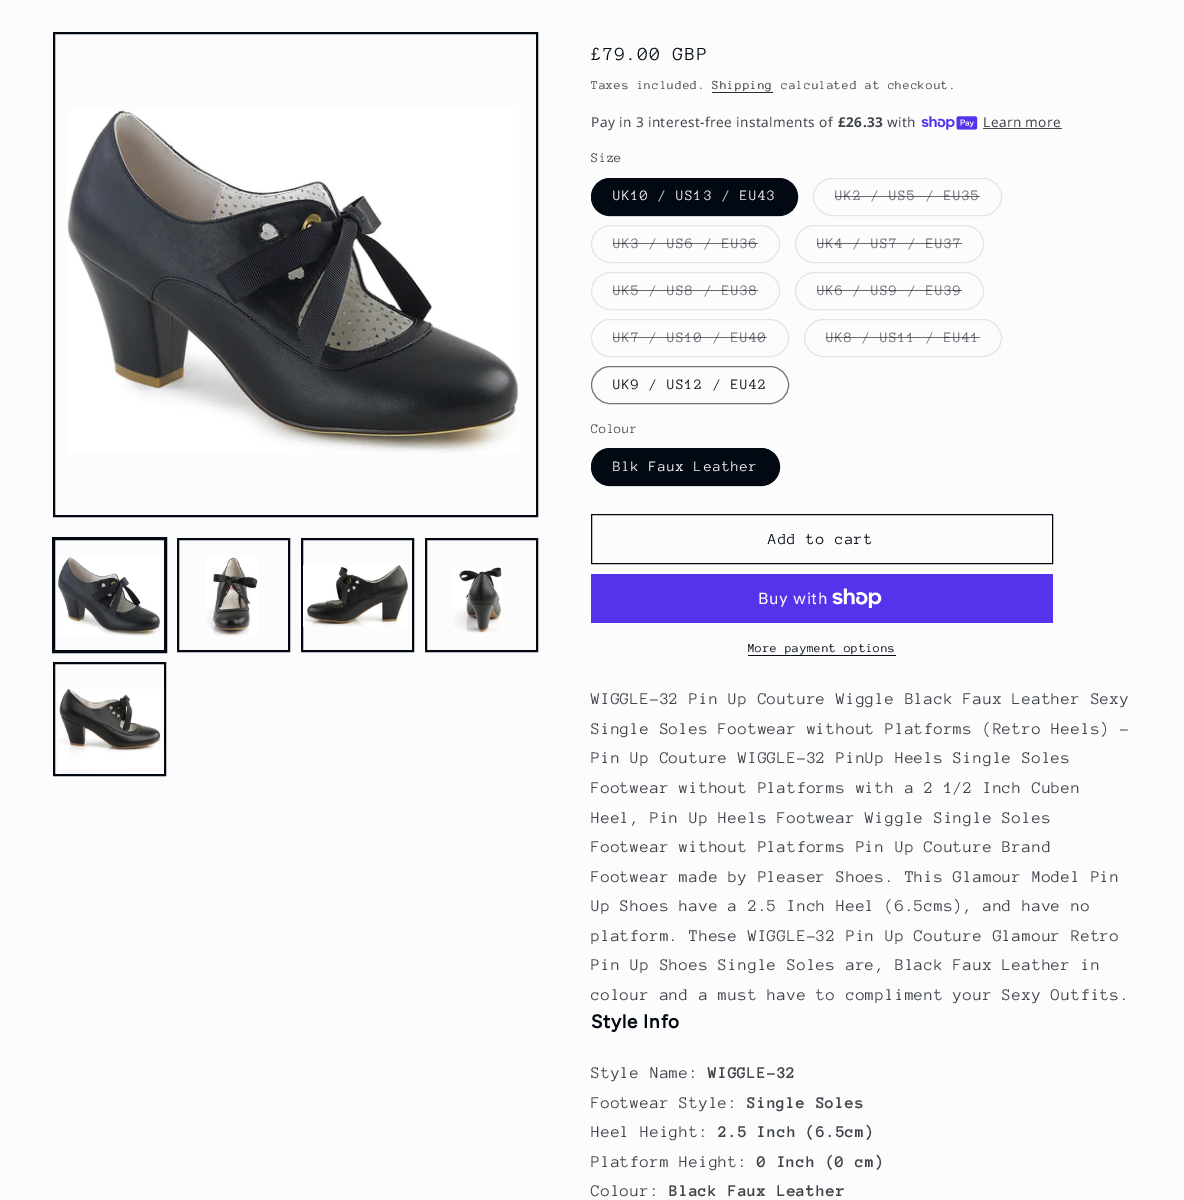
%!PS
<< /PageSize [1184 1200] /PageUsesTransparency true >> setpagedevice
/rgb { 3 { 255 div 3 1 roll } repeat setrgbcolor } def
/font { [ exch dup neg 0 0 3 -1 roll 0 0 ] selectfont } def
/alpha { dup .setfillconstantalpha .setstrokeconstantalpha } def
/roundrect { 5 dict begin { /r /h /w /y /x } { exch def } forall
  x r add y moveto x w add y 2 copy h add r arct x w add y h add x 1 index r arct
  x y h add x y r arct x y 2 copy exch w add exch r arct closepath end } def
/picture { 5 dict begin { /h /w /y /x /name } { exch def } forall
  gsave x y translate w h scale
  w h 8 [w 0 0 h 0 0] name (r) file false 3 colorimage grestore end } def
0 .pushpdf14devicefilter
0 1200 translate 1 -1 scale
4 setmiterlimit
252 252 252 rgb
0 0 1184 1200 rectfill
2 9 18 rgb
2 setlinewidth
54 33 483 483 rectstroke
(img/1.rgb) 67 110 452 343 picture
1 setlinewidth
52.5 537.5 114 115 rectstroke
2 setlinewidth
54 539 111 112 rectstroke
(img/2.rgb) 57 557 103 79 picture
178 539 111 112 rectstroke
(img/3.rgb) 206 557 52 79 picture
302 539 111 112 rectstroke
(img/4.rgb) 303 565 105 62 picture
426 539 111 112 rectstroke
(img/5.rgb) 453 567 49 66 picture
54 663 111 112 rectstroke
(img/6.rgb) 58 689 103 85 picture
40 45 53 rgb
712 92 61 1 rectfill
(img/7.rgb) 921 116 57 14 picture
65 70 77 rgb
983 128 79 1 rectfill
2 9 18 rgb
591 178 207 38 19 roundrect fill
0.55 alpha
1 setlinewidth
591.5 178.5 206 37 18.5 roundrect stroke
1 alpha
227 228 229 rgb
813.5 178.5 188 37 18.5 roundrect stroke
591.5 225.5 188 37 18.5 roundrect stroke
795.5 225.5 188 37 18.5 roundrect stroke
591.5 272.5 188 37 18.5 roundrect stroke
795.5 272.5 188 37 18.5 roundrect stroke
591.5 319.5 197 37 18.5 roundrect stroke
804.5 319.5 197 37 18.5 roundrect stroke
114 118 123 rgb
591.5 366.5 197 37 18.5 roundrect stroke
2 9 18 rgb
591 448 189 38 19 roundrect fill
0.55 alpha
591.5 448.5 188 37 18.5 roundrect stroke
1 alpha
591.5 514.5 461 49 rectstroke
84 51 235 rgb
591 574 462 49 rectfill
(img/8.rgb) 832 588 50 20 picture
2 9 18 rgb
748 655 148 1 rectfill
/AnonymousPro-Regular 19 font
591 60 moveto 1.4 0 (£79.00 GBP) ashow
/AnonymousPro-Regular 12.6 font
65 70 77 rgb
591 89 moveto 0.75 0 (Taxes included.) ashow
40 45 53 rgb
712 89 moveto 0.75 0 (Shipping) ashow
65 70 77 rgb
781 89 moveto 0.75 0 (calculated at checkout.) ashow
/NotoSans-Regular 13.6 font
591 127 moveto 0.4 0 (Pay in 3 interest-free instalments of) ashow
/NotoSans-Bold 13.6 font
838 127 moveto 0.4 0 (£26.33) ashow
/NotoSans-Regular 13.6 font
887 127 moveto 0.4 0 (with) ashow
983 127 moveto 0.4 0 (Learn more) ashow
/AnonymousPro-Regular 13.6 font
591 162 moveto 0.4 0 (Size) ashow
/AnonymousPro-Regular 14.75 font
252 252 252 rgb
613 200 moveto 1 0 (UK10 / US13 / EU43) ashow
102 106 112 rgb
835 200 moveto 1 0 (UK2 / US5 / EU35) ashow
0.6 alpha
2 9 18 rgb
835 196 145 1 rectfill
1 alpha
102 106 112 rgb
613 248 moveto 1 0 (UK3 / US6 / EU36) ashow
0.6 alpha
2 9 18 rgb
613 243 145 1 rectfill
1 alpha
102 106 112 rgb
817 248 moveto 1 0 (UK4 / US7 / EU37) ashow
0.6 alpha
2 9 18 rgb
817 243 145 1 rectfill
1 alpha
102 106 112 rgb
613 295 moveto 1 0 (UK5 / US8 / EU38) ashow
0.6 alpha
2 9 18 rgb
613 290 145 1 rectfill
1 alpha
102 106 112 rgb
817 295 moveto 1 0 (UK6 / US9 / EU39) ashow
0.6 alpha
2 9 18 rgb
817 290 145 1 rectfill
1 alpha
102 106 112 rgb
613 342 moveto 1 0 (UK7 / US10 / EU40) ashow
0.6 alpha
2 9 18 rgb
613 337 154 1 rectfill
1 alpha
102 106 112 rgb
826 342 moveto 1 0 (UK8 / US11 / EU41) ashow
0.6 alpha
2 9 18 rgb
826 337 154 1 rectfill
1 alpha
613 389 moveto 1 0 (UK9 / US12 / EU42) ashow
/AnonymousPro-Regular 13.6 font
65 70 77 rgb
591 433 moveto 0.4 0 (Colour) ashow
/AnonymousPro-Regular 14.75 font
252 252 252 rgb
613 471 moveto 1 0 (Blk Faux Leather) ashow
/AnonymousPro-Regular 15.75 font
2 9 18 rgb
768 544 moveto 1 0 (Add to cart) ashow
/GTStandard-Regular 16 font
252 252 252 rgb
758 604 moveto 0.63 0 (Buy with) ashow
/AnonymousPro-Regular 12.6 font
2 9 18 rgb
748 652 moveto 0.5 0 (More payment options) ashow
/AnonymousPro-Regular 16.8 font
65 70 77 rgb
591 704 moveto 0.63 0 (WIGGLE-32 Pin Up Couture Wiggle Black Faux Leather Sexy) ashow
591 734 moveto 0.63 0 (Single Soles Footwear without Platforms \(Retro Heels\) -) ashow
591 763 moveto 0.63 0 (Pin Up Couture WIGGLE-32 PinUp Heels Single Soles) ashow
591 793 moveto 0.63 0 (Footwear without Platforms with a 2 1/2 Inch Cuben) ashow
591 823 moveto 0.63 0 (Heel, Pin Up Heels Footwear Wiggle Single Soles) ashow
591 852 moveto 0.63 0 (Footwear without Platforms Pin Up Couture Brand) ashow
591 882 moveto 0.63 0 (Footwear made by Pleaser Shoes. This Glamour Model Pin) ashow
591 911 moveto 0.63 0 (Up Shoes have a 2.5 Inch Heel \(6.5cms\), and have no) ashow
591 941 moveto 0.63 0 (platform. These WIGGLE-32 Pin Up Couture Glamour Retro) ashow
591 970 moveto 0.63 0 (Pin Up Shoes Single Soles are, Black Faux Leather in) ashow
591 1000 moveto 0.63 0 (colour and a must have to compliment your Sexy Outfits.) ashow
/Figtree-Bold 18.75 font
2 9 18 rgb
591 1028 moveto 0.75 0 (Style Info) ashow
/AnonymousPro-Regular 16.8 font
65 70 77 rgb
591 1078 moveto 0.63 0 (Style Name:) ashow
/AnonymousPro-Bold 16.8 font
708 1078 moveto 0.63 0 (WIGGLE-32) ashow
/AnonymousPro-Regular 16.8 font
591 1108 moveto 0.63 0 (Footwear Style:) ashow
/AnonymousPro-Bold 16.8 font
747 1108 moveto 0.63 0 (Single Soles) ashow
/AnonymousPro-Regular 16.8 font
591 1137 moveto 0.63 0 (Heel Height:) ashow
/AnonymousPro-Bold 16.8 font
718 1137 moveto 0.63 0 (2.5 Inch \(6.5cm\)) ashow
/AnonymousPro-Regular 16.8 font
591 1167 moveto 0.63 0 (Platform Height:) ashow
/AnonymousPro-Bold 16.8 font
757 1167 moveto 0.63 0 (0 Inch \(0 cm\)) ashow
/AnonymousPro-Regular 16.8 font
591 1196 moveto 0.63 0 (Colour:) ashow
/AnonymousPro-Bold 16.8 font
669 1196 moveto 0.63 0 (Black Faux Leather) ashow
.poppdf14devicefilter showpage
